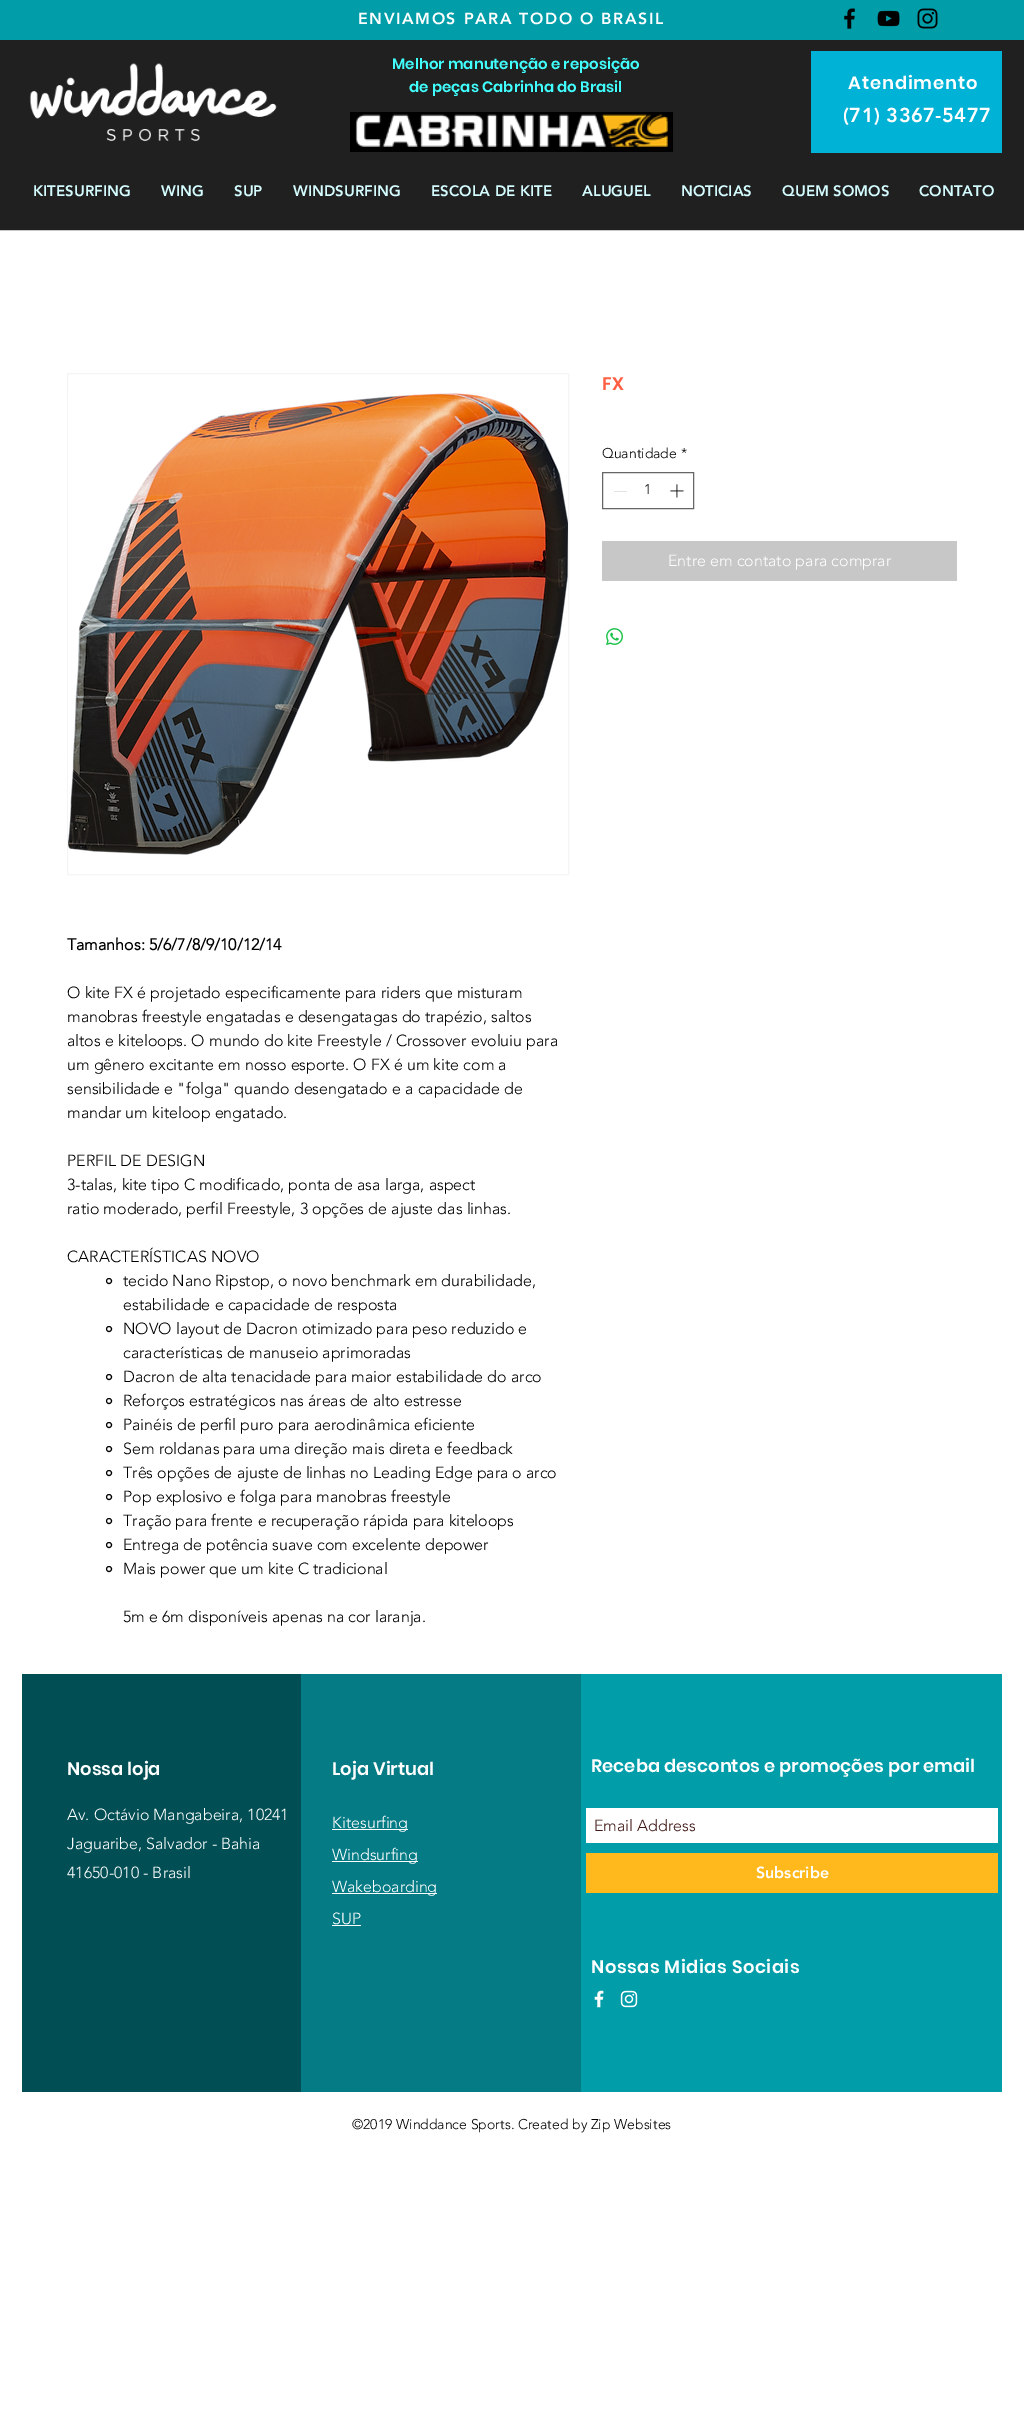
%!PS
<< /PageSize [1024 2422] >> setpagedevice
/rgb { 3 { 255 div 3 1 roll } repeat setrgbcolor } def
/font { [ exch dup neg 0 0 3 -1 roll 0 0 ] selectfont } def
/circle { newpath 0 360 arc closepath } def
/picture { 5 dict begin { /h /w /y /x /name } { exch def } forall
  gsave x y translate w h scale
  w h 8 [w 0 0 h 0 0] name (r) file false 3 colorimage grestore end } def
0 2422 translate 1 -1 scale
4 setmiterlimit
255 255 255 rgb
0 0 1024 2422 rectfill
1 158 170 rgb
0 0 1024 40 rectfill
(img/1.rgb) 844 8 11 21 picture
(img/2.rgb) 877 10 23 17 picture
(img/3.rgb) 917 8 21 21 picture
32 32 32 rgb
0 40 1024 190 rectfill
(img/4.rgb) 29 63 248 78 picture
(img/5.rgb) 350 112 323 40 picture
199 199 199 rgb
0 230 1024 1 rectfill
0 179 214 rgb
811 51 191 102 rectfill
102 102 102 rgb
602.5 472.5 91 36 rectstroke
227 227 227 rgb
614 491 13 1 rectfill
(img/6.rgb) 670 484 14 14 picture
199 199 199 rgb
602 541 355 40 rectfill
(img/7.rgb) 606 628 17 17 picture
245 245 245 rgb
67.5 373.5 501 501 rectstroke
(img/8.rgb) 68 393 500 462 picture
0 0 0 rgb
109 1281 2.5 circle stroke
109 1329 2.5 circle stroke
109 1377 2.5 circle stroke
109 1401 2.5 circle stroke
109 1425 2.5 circle stroke
109 1449 2.5 circle stroke
109 1473 2.5 circle stroke
109 1497 2.5 circle stroke
109 1521 2.5 circle stroke
109 1545 2.5 circle stroke
109 1569 2.5 circle stroke
[
  [22 1674 279 418 1 79 85]
  [301 1674 280 418 4 123 133]
  [332 1829 76 1 255 255 255]
  [332 1861 86 1 255 255 255]
  [332 1893 105 1 255 255 255]
  [332 1925 29 1 255 255 255]
  [581 1674 421 418 1 158 170]
  [586 1808 412 35 255 255 255]
  [586 1853 412 40 255 185 29]
] { aload pop rgb rectfill } forall
(img/9.rgb) 594 1990 10 18 picture
(img/10.rgb) 620 1990 18 18 picture
/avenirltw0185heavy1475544-Black 16 font
255 255 255 rgb
358 24 moveto 1.6 0 (ENVIAMOS PARA TODO O BRASIL) ashow
/Poppins-SemiBold 15 font
66 255 255 rgb
392 69 moveto (Melhor manutenção e reposição) show
409 92 moveto (de peças Cabrinha do Brasil) show
/Poppins-SemiBold 18 font
255 255 255 rgb
848 89 moveto 0.9 0 (Atendimento) ashow
/avenirltw0185heavy1475544-Black 20 font
843 122 moveto 0.4 0 (\(71\) 3367-5477) ashow
/avenirltw0185heavy1475544-Black 15 font
212 252 255 rgb
[
  [(KITESURFING) 33 196]
  [(WING) 161 196]
  [(SUP) 234 196]
  [(WINDSURFING) 293 196]
  [(ESCOLA DE KITE) 431 196]
  [(ALUGUEL) 582 196]
  [(NOTICIAS) 681 196]
  [(QUEM SOMOS) 782 196]
  [(CONTATO) 919 196]
] { aload pop moveto show } forall
/Poppins-SemiBold 18 font
255 95 66 rgb
602 390 moveto (FX) show
/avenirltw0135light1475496-Light 14 font
0 0 0 rgb
[
  [(Quantidade) 602 458]
  [(*) 681 458]
  [(1) 644 494]
] { aload pop moveto show } forall
/avenirltw0135light1475496-Light 16 font
255 255 255 rgb
668 566 moveto (Entre em contato para comprar) show
/avenirltw0135light1475496-Bold 16 font
0 0 0 rgb
67 950 moveto (Tamanhos: 5/6/7/8/9/10/12/14) show
/avenirltw0135light1475496-Light 16 font
[
  [(O kite FX é projetado especificamente para riders que misturam) 67 998]
  [(manobras freestyle engatadas e desengatagas do trapézio, saltos) 67 1022]
  [(altos e kiteloops. O mundo do kite Freestyle / Crossover evoluiu para) 67 1046]
  [(um gênero excitante em nosso esporte. O FX é um kite com a) 67 1070]
  [(sensibilidade e "folga" quando desengatado e a capacidade de) 67 1094]
  [(mandar um kiteloop engatado.) 67 1118]
  [(PERFIL DE DESIGN) 67 1166]
  [(3-talas, kite tipo C modificado, ponta de asa larga, aspect) 67 1190]
  [(ratio moderado, perfil Freestyle, 3 opções de ajuste das linhas.) 67 1214]
  [(CARACTERÍSTICAS NOVO) 67 1262]
  [(tecido Nano Ripstop, o novo benchmark em durabilidade,) 123 1286]
  [(estabilidade e capacidade de resposta) 123 1310]
  [(NOVO layout de Dacron otimizado para peso reduzido e) 123 1334]
  [(características de manuseio aprimoradas) 123 1358]
  [(Dacron de alta tenacidade para maior estabilidade do arco) 123 1382]
  [(Reforços estratégicos nas áreas de alto estresse) 123 1406]
  [(Painéis de perfil puro para aerodinâmica eficiente) 123 1430]
  [(Sem roldanas para uma direção mais direta e feedback) 123 1454]
  [(Três opções de ajuste de linhas no Leading Edge para o arco) 123 1478]
  [(Pop explosivo e folga para manobras freestyle) 123 1502]
  [(Tração para frente e recuperação rápida para kiteloops) 123 1526]
  [(Entrega de potência suave com excelente depower) 123 1550]
  [(Mais power que um kite C tradicional) 123 1574]
  [(5m e 6m disponíveis apenas na cor laranja.) 123 1622]
] { aload pop moveto show } forall
/Poppins-SemiBold 18 font
255 255 255 rgb
67 1775 moveto (Nossa loja) show
/avenirltw0135light1475496-Light 16 font
[
  [(Av. Octávio Mangabeira, 10241) 67 1820]
  [(Jaguaribe, Salvador - Bahia) 67 1849]
  [(41650-010 - Brasil) 67 1878]
] { aload pop moveto show } forall
/Poppins-SemiBold 18 font
332 1775 moveto (Loja Virtual) show
/avenirltw0135light1475496-Light 16 font
[
  [(Kitesurfing) 332 1828]
  [(Windsurfing) 332 1860]
  [(Wakeboarding) 332 1892]
  [(SUP) 332 1924]
] { aload pop moveto show } forall
/Poppins-SemiBold 18 font
591 1772 moveto (Receba descontos e promoções por email) show
/avenirltw0135light1475496-Light 16 font
64 24 22 rgb
594 1831 moveto (Email Address) show
/avenirltw0185heavy1475544-Black 16 font
255 255 255 rgb
756 1878 moveto (Subscribe) show
/Poppins-SemiBold 18 font
591 1973 moveto 0.5 0 (Nossas Midias Sociais) ashow
/avenirltw0135light1475496-Light 14 font
0 0 0 rgb
352 2129 moveto (©2019 Winddance Sports. Created by Zip Websites) show
showpage
